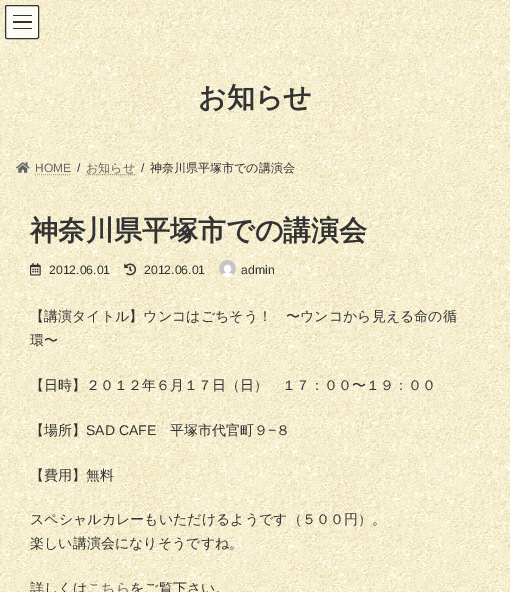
%!PS
<< /PageSize [510 592] /PageUsesTransparency true >> setpagedevice
/rgb { 3 { 255 div 3 1 roll } repeat setrgbcolor } def
/font { [ exch dup neg 0 0 3 -1 roll 0 0 ] selectfont } def
/alpha { dup .setfillconstantalpha .setstrokeconstantalpha } def
/roundrect { 5 dict begin { /r /h /w /y /x } { exch def } forall
  x r add y moveto x w add y 2 copy h add r arct x w add y h add x 1 index r arct
  x y h add x y r arct x y 2 copy exch w add exch r arct closepath end } def
/picture { 5 dict begin { /h /w /y /x /name } { exch def } forall
  gsave x y translate w h scale
  w h 8 [w 0 0 h 0 0] name (r) file false 3 colorimage grestore end } def
0 .pushpdf14devicefilter
0 592 translate 1 -1 scale
4 setmiterlimit
255 255 255 rgb
0 0 510 592 rectfill
(img/1.rgb) 0 0 510 592 picture
0.8 alpha
5 5 34 34 2 roundrect fill
[
  [13 15 19 1 0 0 0]
  [13 21 19 2 0 0 0]
  [13 28 19 1 0 0 0]
] { aload pop rgb rectfill } forall
1 alpha
51 51 51 rgb
5.5 5.5 33 33 1.5 roundrect stroke
(img/2.rgb) 16 162 14 11 picture
0.3 alpha
0 0 0 rgb
[1 1] 0 setdash
35 174.5 moveto 71 174.5 lineto stroke
86 174.5 moveto 135 174.5 lineto stroke
1 alpha
(img/3.rgb) 30 263 11 13 picture
(img/4.rgb) 124 263 13 13 picture
(img/5.rgb) 219 260 17 17 picture
/WenQuanYiZenHei-Bold 28 font
51 51 51 rgb
198 107 moveto (お知らせ) show
/LiberationSans-Regular 12 font
102 102 102 rgb
35 172 moveto (HOME) show
51 51 51 rgb
77 172 moveto (/) show
/WenQuanYiZenHei-Medium 12 font
102 102 102 rgb
86 172 moveto (お知らせ) show
/LiberationSans-Regular 12 font
51 51 51 rgb
141 172 moveto (/) show
/WenQuanYiZenHei-Medium 12 font
150 172 moveto (神奈川県平塚市での講演会) show
/WenQuanYiZenHei-Bold 28 font
30 240 moveto (神奈川県平塚市での講演会) show
/LiberationSans-Regular 12.25 font
[
  [(2012.06.01) 49 274]
  [(2012.06.01) 144 274]
  [(admin) 241 274]
] { aload pop moveto show } forall
/WenQuanYiZenHei-Medium 14 font
[
  [(【講演タイトル】ウンコはごちそう！　〜ウンコから見える命の循) 30 321]
  [(環〜) 30 345]
  [(【日時】２０１２年６月１７日（日）　１７：００〜１９：００) 30 390]
  [(【場所】) 30 435]
] { aload pop moveto show } forall
/LiberationSans-Regular 14 font
86 435 moveto (SAD CAFE) show
/WenQuanYiZenHei-Medium 14 font
170 435 moveto (平塚市代官町９) show
/LiberationSans-Regular 14 font
268 435 moveto (−) show
/WenQuanYiZenHei-Medium 14 font
[
  [(８) 276 435]
  [(【費用】無料) 30 480]
  [(スペシャルカレーもいただけるようです（５００円）。) 30 524]
  [(楽しい講演会になりそうですね。) 30 548]
  [(詳しくは) 30 593]
] { aload pop moveto show } forall
102 102 102 rgb
87 593 moveto (こちら) show
51 51 51 rgb
130 593 moveto (をご覧下さい。) show
.poppdf14devicefilter showpage
